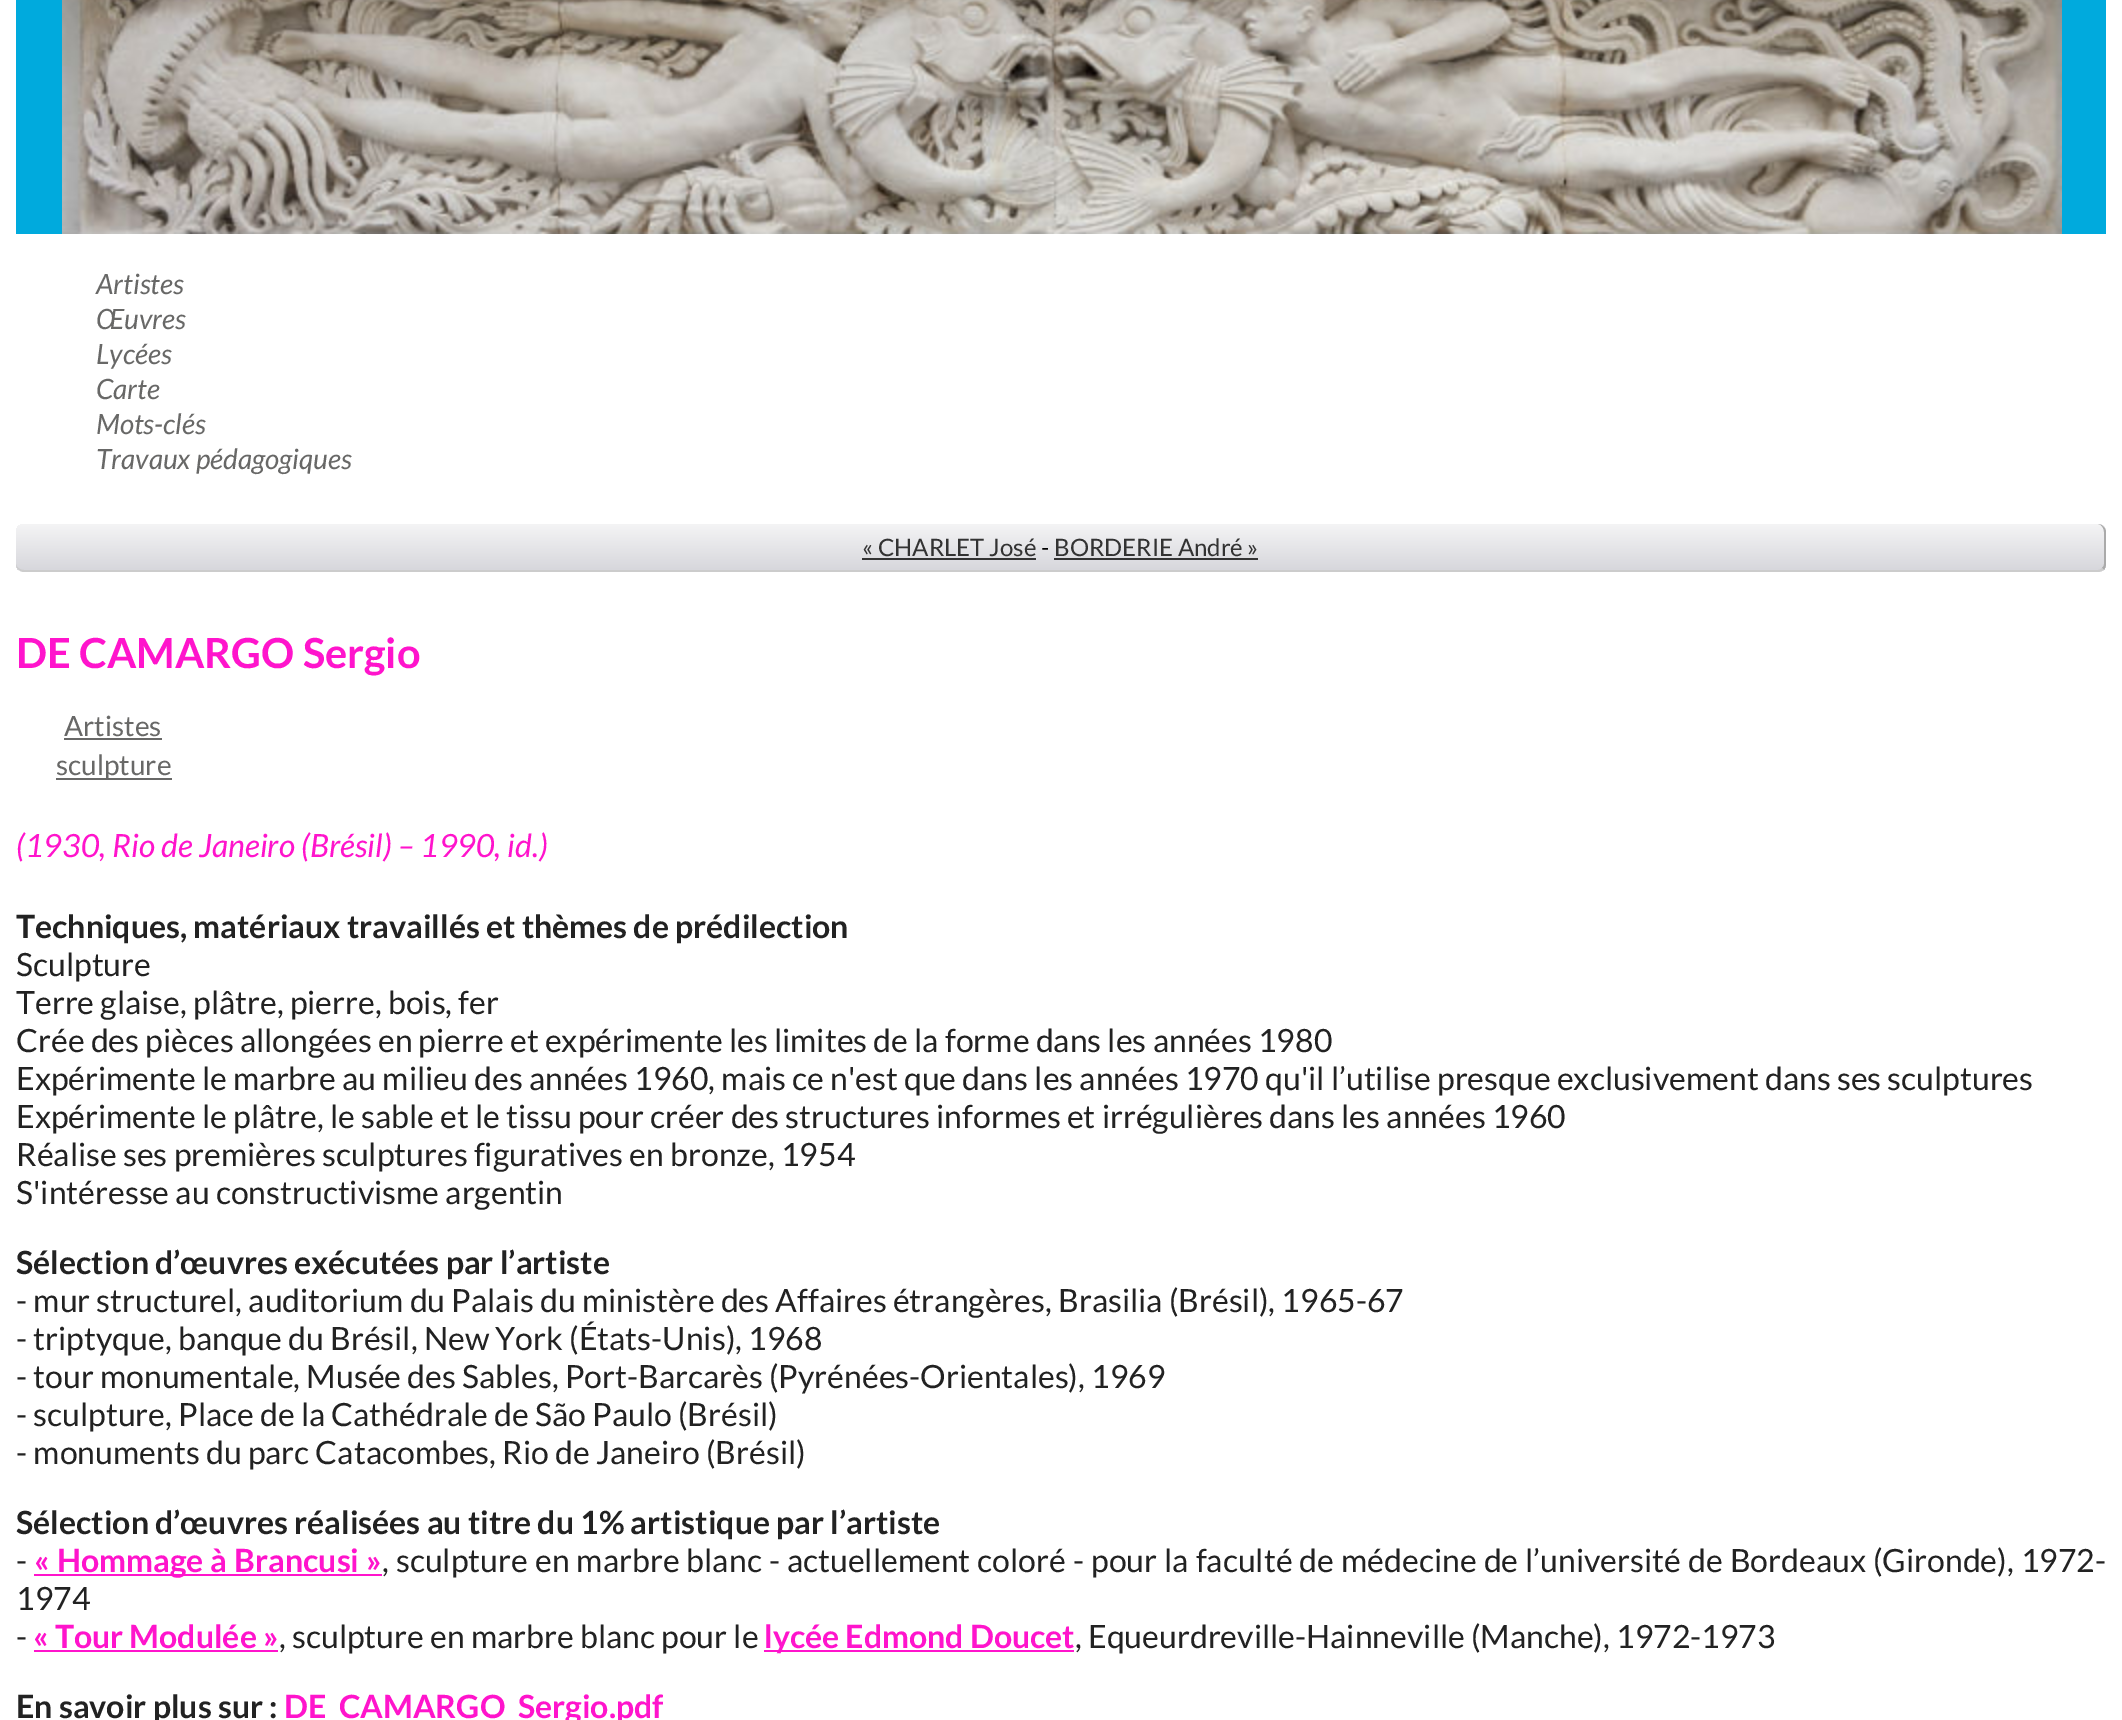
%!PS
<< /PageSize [2122 1720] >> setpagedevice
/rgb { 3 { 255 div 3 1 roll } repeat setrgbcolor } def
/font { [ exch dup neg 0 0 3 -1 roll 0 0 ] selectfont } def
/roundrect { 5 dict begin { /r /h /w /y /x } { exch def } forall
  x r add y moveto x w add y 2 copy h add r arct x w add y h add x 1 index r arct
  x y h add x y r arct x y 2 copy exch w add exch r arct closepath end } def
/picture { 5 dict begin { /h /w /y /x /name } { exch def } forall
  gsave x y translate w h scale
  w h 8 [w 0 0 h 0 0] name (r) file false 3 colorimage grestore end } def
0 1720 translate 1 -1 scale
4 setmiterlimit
255 255 255 rgb
0 0 2122 1720 rectfill
0 170 221 rgb
16 0 2090 234 rectfill
(img/1.rgb) 62 0 2000 234 picture
gsave
16 524 2090 48 8 roundrect clip newpath
gsave 24 524 moveto 2098 524 lineto 2102.5 524 2106 527.5 2106 532 curveto 2106 570 lineto 16 570 lineto 16 532 lineto 16 527.5 19.5 524 24 524 curveto closepath clip newpath
<< /ShadingType 2 /ColorSpace /DeviceRGB /Coords [1060 524 1060 570] /Extend [true true] /Function << /FunctionType 2 /Domain [0 1] /C0 [0.957 0.957 0.961] /C1 [0.843 0.843 0.863] /N 1 >> >> shfill grestore
gsave 16 570 moveto 2106 570 lineto 2106 572 lineto 16 572 lineto closepath clip newpath
<< /ShadingType 2 /ColorSpace /DeviceRGB /Coords [1060 570 1060 616] /Extend [true true] /Function << /FunctionType 2 /Domain [0 1] /C0 [0.957 0.957 0.961] /C1 [0.843 0.843 0.863] /N 1 >> >> shfill grestore
grestore
170 170 170 rgb
2106 532 moveto 2106 528 2102 524 2098 524 curveto 2101 524 2104 528 2104 532 curveto 2104 564 lineto 2104 566 2103 567 2102 568 curveto 2104 570 lineto 2105 568 2106 566 2106 564 curveto closepath fill
204 204 204 rgb
24 572 moveto 2098 572 lineto 2100 572 2102 571 2104 570 curveto 2102 568 lineto 2101 569 2100 570 2098 570 curveto 24 570 lineto 20 570 16 567 16 564 curveto 16 568 20 572 24 572 curveto closepath fill
[
  [862 558 174 2 51 51 51]
  [1054 558 204 2 51 51 51]
  [64 738 98 2 104 104 103]
  [56 778 116 2 104 104 103]
  [34 1574 348 2 255 20 204]
  [34 1650 244 2 255 20 204]
  [764 1650 310 2 255 20 204]
] { aload pop rgb rectfill } forall
/Lato-Italic 28 font
104 104 103 rgb
[
  [(Artistes) 96 294]
  [(Œuvres) 96 329]
  [(Lycées) 96 364]
  [(Carte) 96 399]
  [(Mots-clés) 96 434]
  [(Travaux pédagogiques) 96 469]
] { aload pop moveto show } forall
/Lato-Regular 24 font
51 51 51 rgb
862 556 moveto (« CHARLET José) show
0 0 0 rgb
1041 556 moveto (-) show
51 51 51 rgb
1054 556 moveto (BORDERIE André ») show
/Lato-Bold 41.5 font
255 20 204 rgb
16 668 moveto (DE CAMARGO Sergio) show
/Lato-Regular 28 font
104 104 103 rgb
64 736 moveto (Artistes) show
56 775 moveto (sculpture) show
/Lato-Italic 32 font
255 20 204 rgb
16 857 moveto (\(1930, Rio de Janeiro \(Brésil\) – 1990, id.\)) show
/Lato-Bold 32 font
34 34 34 rgb
16 938 moveto (Techniques, matériaux travaillés et thèmes de prédilection) show
/Lato-Regular 32 font
[
  [(Sculpture) 16 976]
  [(Terre glaise, plâtre, pierre, bois, fer) 16 1014]
  [(Crée des pièces allongées en pierre et expérimente les limites de la forme dans les années 1980) 16 1052]
  [(Expérimente le marbre au milieu des années 1960, mais ce n'est que dans les années 1970 qu'il l’utilise presque exclusivement dans ses sculptures) 16 1090]
  [(Expérimente le plâtre, le sable et le tissu pour créer des structures informes et irrégulières dans les années 1960) 16 1128]
  [(Réalise ses premières sculptures figuratives en bronze, 1954) 16 1166]
  [(S'intéresse au constructivisme argentin) 16 1204]
] { aload pop moveto show } forall
/Lato-Bold 32 font
16 1274 moveto (Sélection d’œuvres exécutées par l’artiste) show
/Lato-Regular 32 font
[
  [(- mur structurel, auditorium du Palais du ministère des Affaires étrangères, Brasilia \(Brésil\), 1965-67) 16 1312]
  [(- triptyque, banque du Brésil, New York \(États-Unis\), 1968) 16 1350]
  [(- tour monumentale, Musée des Sables, Port-Barcarès \(Pyrénées-Orientales\), 1969) 16 1388]
  [(- sculpture, Place de la Cathédrale de São Paulo \(Brésil\)) 16 1426]
  [(- monuments du parc Catacombes, Rio de Janeiro \(Brésil\)) 16 1464]
] { aload pop moveto show } forall
/Lato-Bold 32 font
16 1534 moveto (Sélection d’œuvres réalisées au titre du 1% artistique par l’artiste) show
/Lato-Regular 32 font
16 1572 moveto (-) show
/Lato-Bold 32 font
255 20 204 rgb
34 1572 moveto 0.9 0 32 (« Hommage à Brancusi ») widthshow
/Lato-Regular 32 font
34 34 34 rgb
382 1572 moveto 0.9 0 32 (, sculpture en marbre blanc - actuellement coloré - pour la faculté de médecine de l’université de Bordeaux \(Gironde\), 1972-) widthshow
16 1610 moveto (1974) show
16 1648 moveto (-) show
/Lato-Bold 32 font
255 20 204 rgb
33 1648 moveto (« Tour Modulée ») show
/Lato-Regular 32 font
34 34 34 rgb
279 1648 moveto (, sculpture en marbre blanc pour le) show
/Lato-Bold 32 font
255 20 204 rgb
764 1648 moveto (lycée Edmond Doucet) show
/Lato-Regular 32 font
34 34 34 rgb
1075 1648 moveto (, Equeurdreville-Hainneville \(Manche\), 1972-1973) show
/Lato-Bold 32 font
16 1718 moveto (En savoir plus sur :) show
255 20 204 rgb
284 1718 moveto (DE_CAMARGO_Sergio.pdf) show
showpage
